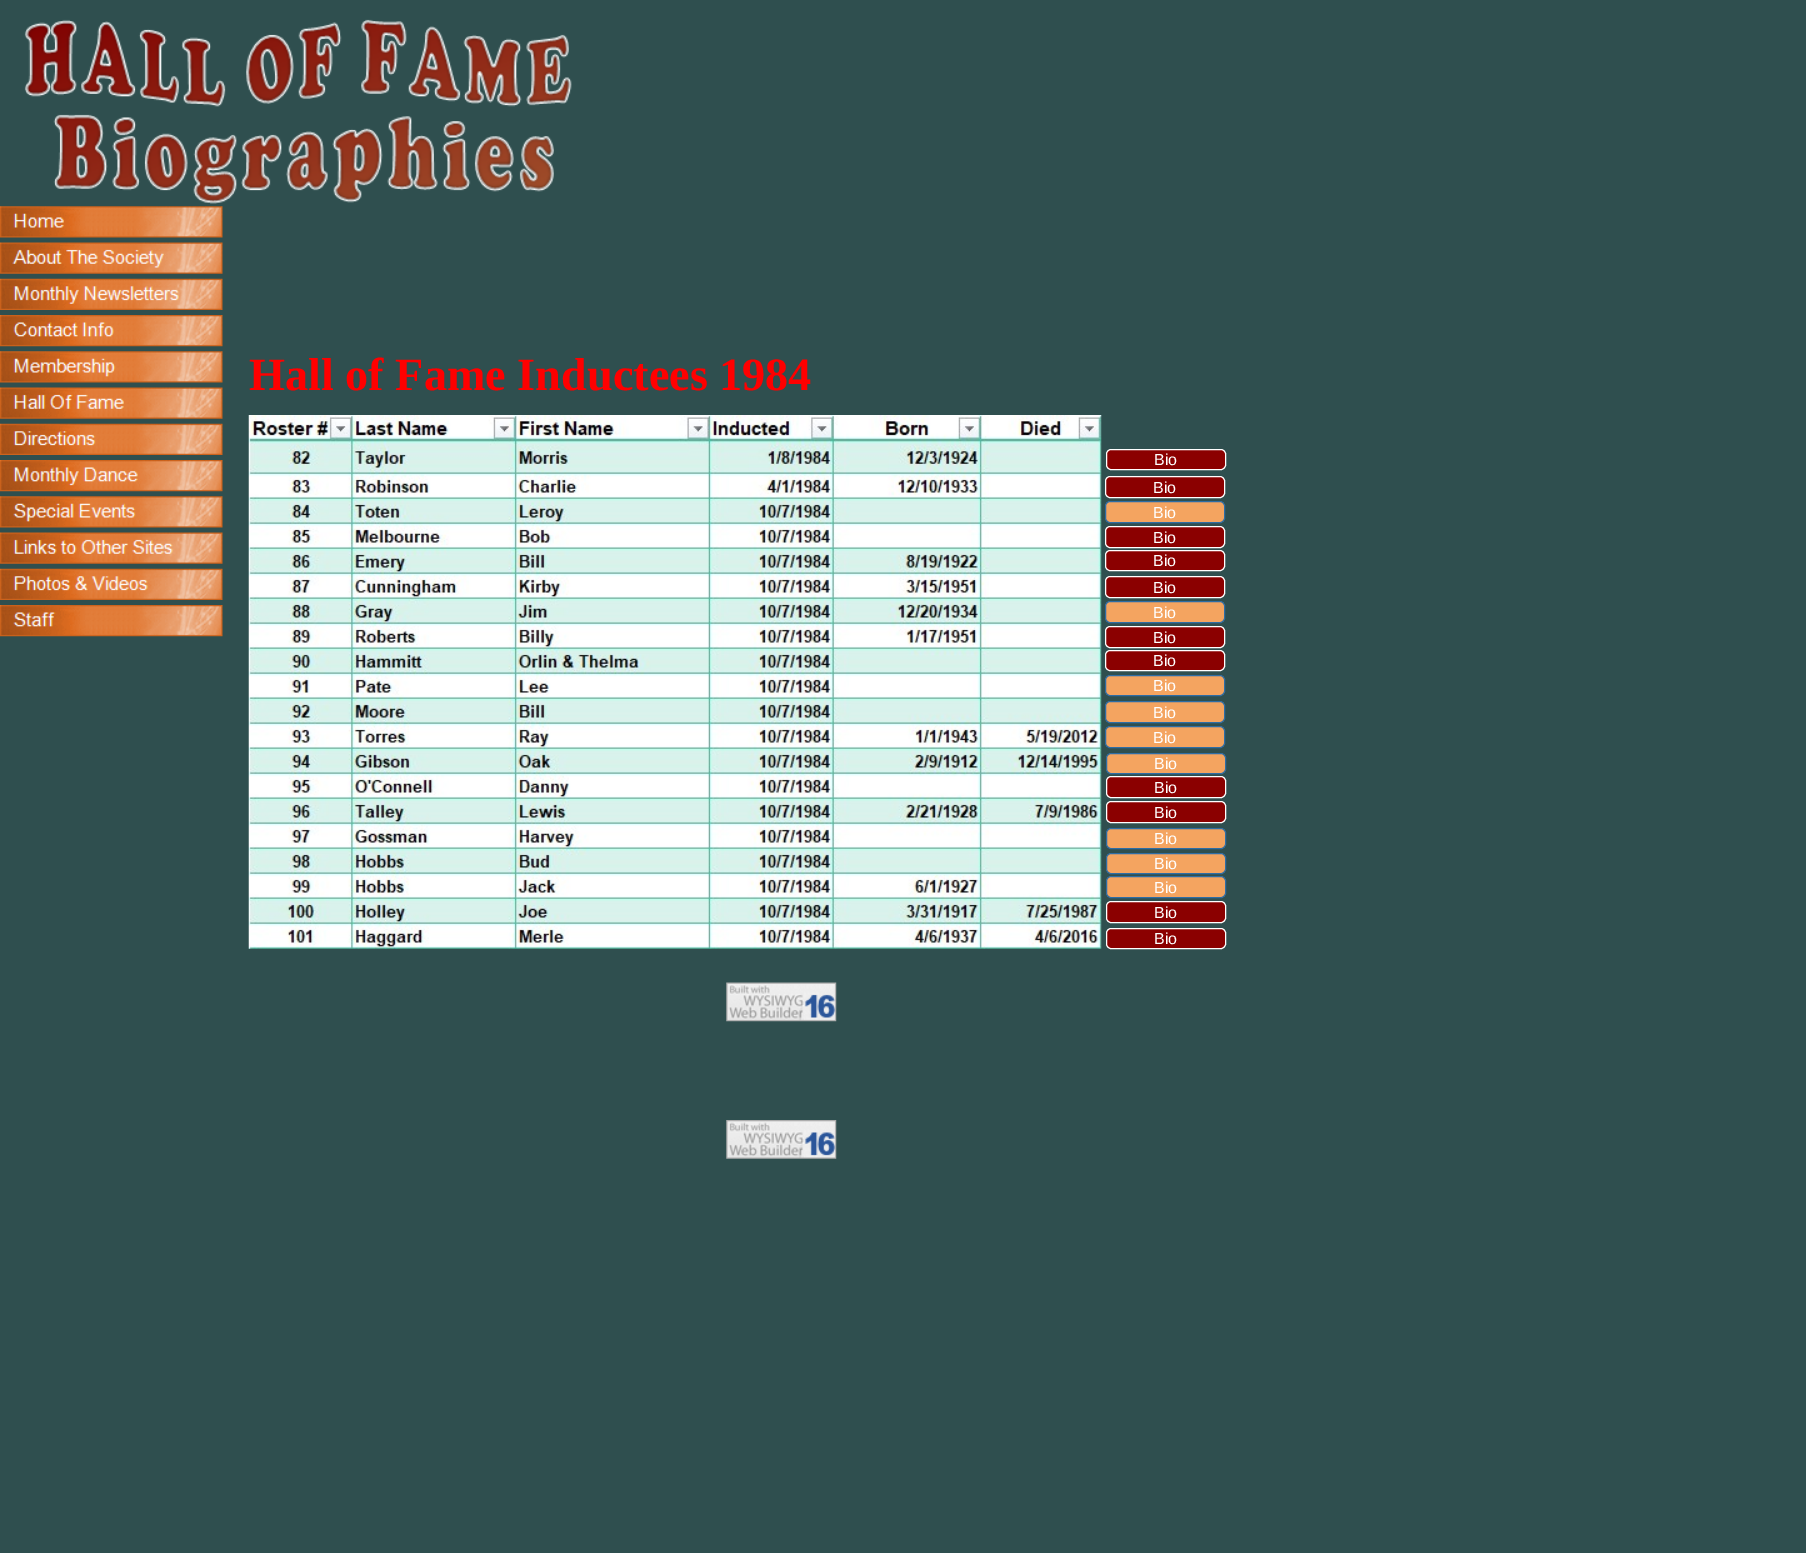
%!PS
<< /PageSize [1806 1553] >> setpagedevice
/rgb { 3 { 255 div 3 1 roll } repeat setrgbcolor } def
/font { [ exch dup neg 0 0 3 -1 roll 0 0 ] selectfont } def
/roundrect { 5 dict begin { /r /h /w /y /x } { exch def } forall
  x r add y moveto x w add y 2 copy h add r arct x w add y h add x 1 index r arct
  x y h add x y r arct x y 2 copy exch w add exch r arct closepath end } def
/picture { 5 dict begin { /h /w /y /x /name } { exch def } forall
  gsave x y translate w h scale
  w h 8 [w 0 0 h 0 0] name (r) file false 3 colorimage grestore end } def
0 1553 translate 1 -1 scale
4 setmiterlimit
47 79 79 rgb
0 0 1806 1553 rectfill
(img/1.rgb) 24 19 548 185 picture
(img/2.rgb) 0 206 223 32 picture
(img/3.rgb) 0 242 223 32 picture
(img/4.rgb) 0 278 223 32 picture
(img/5.rgb) 0 315 223 32 picture
(img/6.rgb) 0 351 223 32 picture
(img/7.rgb) 0 387 223 32 picture
(img/8.rgb) 0 423 223 32 picture
(img/9.rgb) 0 460 223 32 picture
(img/10.rgb) 0 496 223 32 picture
(img/11.rgb) 0 532 223 32 picture
(img/12.rgb) 0 568 223 32 picture
(img/13.rgb) 0 605 223 32 picture
(img/14.rgb) 726 1120 111 39 picture
(img/15.rgb) 248 415 854 534 picture
139 0 0 rgb
1106.5 449.5 119 20 4.5 roundrect gsave fill grestore
255 255 255 rgb
stroke
139 0 0 rgb
1105.5 476.5 119 21 4.5 roundrect gsave fill grestore
255 255 255 rgb
stroke
244 164 96 rgb
1105.5 501.5 119 21 4.5 roundrect gsave fill grestore
46 109 164 rgb
stroke
139 0 0 rgb
1105.5 526.5 119 21 4.5 roundrect gsave fill grestore
255 255 255 rgb
stroke
139 0 0 rgb
1105.5 550.5 119 20 4.5 roundrect gsave fill grestore
255 255 255 rgb
stroke
139 0 0 rgb
1105.5 576.5 119 21 4.5 roundrect gsave fill grestore
255 255 255 rgb
stroke
244 164 96 rgb
1105.5 601.5 119 21 4.5 roundrect gsave fill grestore
46 109 164 rgb
stroke
139 0 0 rgb
1105.5 626.5 119 21 4.5 roundrect gsave fill grestore
255 255 255 rgb
stroke
139 0 0 rgb
1105.5 650.5 119 20 4.5 roundrect gsave fill grestore
255 255 255 rgb
stroke
244 164 96 rgb
1105.5 675.5 119 20 4.5 roundrect gsave fill grestore
46 109 164 rgb
stroke
244 164 96 rgb
1105.5 701.5 119 21 4.5 roundrect gsave fill grestore
46 109 164 rgb
stroke
244 164 96 rgb
1105.5 726.5 119 21 4.5 roundrect gsave fill grestore
46 109 164 rgb
stroke
244 164 96 rgb
1106.5 753.5 119 20 4.5 roundrect gsave fill grestore
46 109 164 rgb
stroke
139 0 0 rgb
1106.5 776.5 119 21 4.5 roundrect gsave fill grestore
255 255 255 rgb
stroke
139 0 0 rgb
1106.5 801.5 119 21 4.5 roundrect gsave fill grestore
255 255 255 rgb
stroke
244 164 96 rgb
1106.5 828.5 119 20 4.5 roundrect gsave fill grestore
46 109 164 rgb
stroke
244 164 96 rgb
1106.5 853.5 119 20 4.5 roundrect gsave fill grestore
46 109 164 rgb
stroke
244 164 96 rgb
1106.5 876.5 119 21 4.5 roundrect gsave fill grestore
46 109 164 rgb
stroke
139 0 0 rgb
1106.5 901.5 119 21 4.5 roundrect gsave fill grestore
255 255 255 rgb
stroke
139 0 0 rgb
1106.5 928.5 119 20 4.5 roundrect gsave fill grestore
255 255 255 rgb
stroke
(img/16.rgb) 726 982 111 40 picture
/LiberationSerif-Bold 46.25 font
255 0 0 rgb
249 390 moveto (Hall of Fame Inductees 1984) show
/LiberationSans-Regular 16 font
255 255 255 rgb
[
  [(Bio) 1154 465]
  [(Bio) 1153 493]
  [(Bio) 1153 518]
  [(Bio) 1153 543]
  [(Bio) 1153 566]
  [(Bio) 1153 593]
  [(Bio) 1153 618]
  [(Bio) 1153 643]
  [(Bio) 1153 666]
  [(Bio) 1153 691]
  [(Bio) 1153 718]
  [(Bio) 1153 743]
  [(Bio) 1154 769]
  [(Bio) 1154 793]
  [(Bio) 1154 818]
  [(Bio) 1154 844]
  [(Bio) 1154 869]
  [(Bio) 1154 893]
  [(Bio) 1154 918]
  [(Bio) 1154 944]
] { aload pop moveto show } forall
showpage
